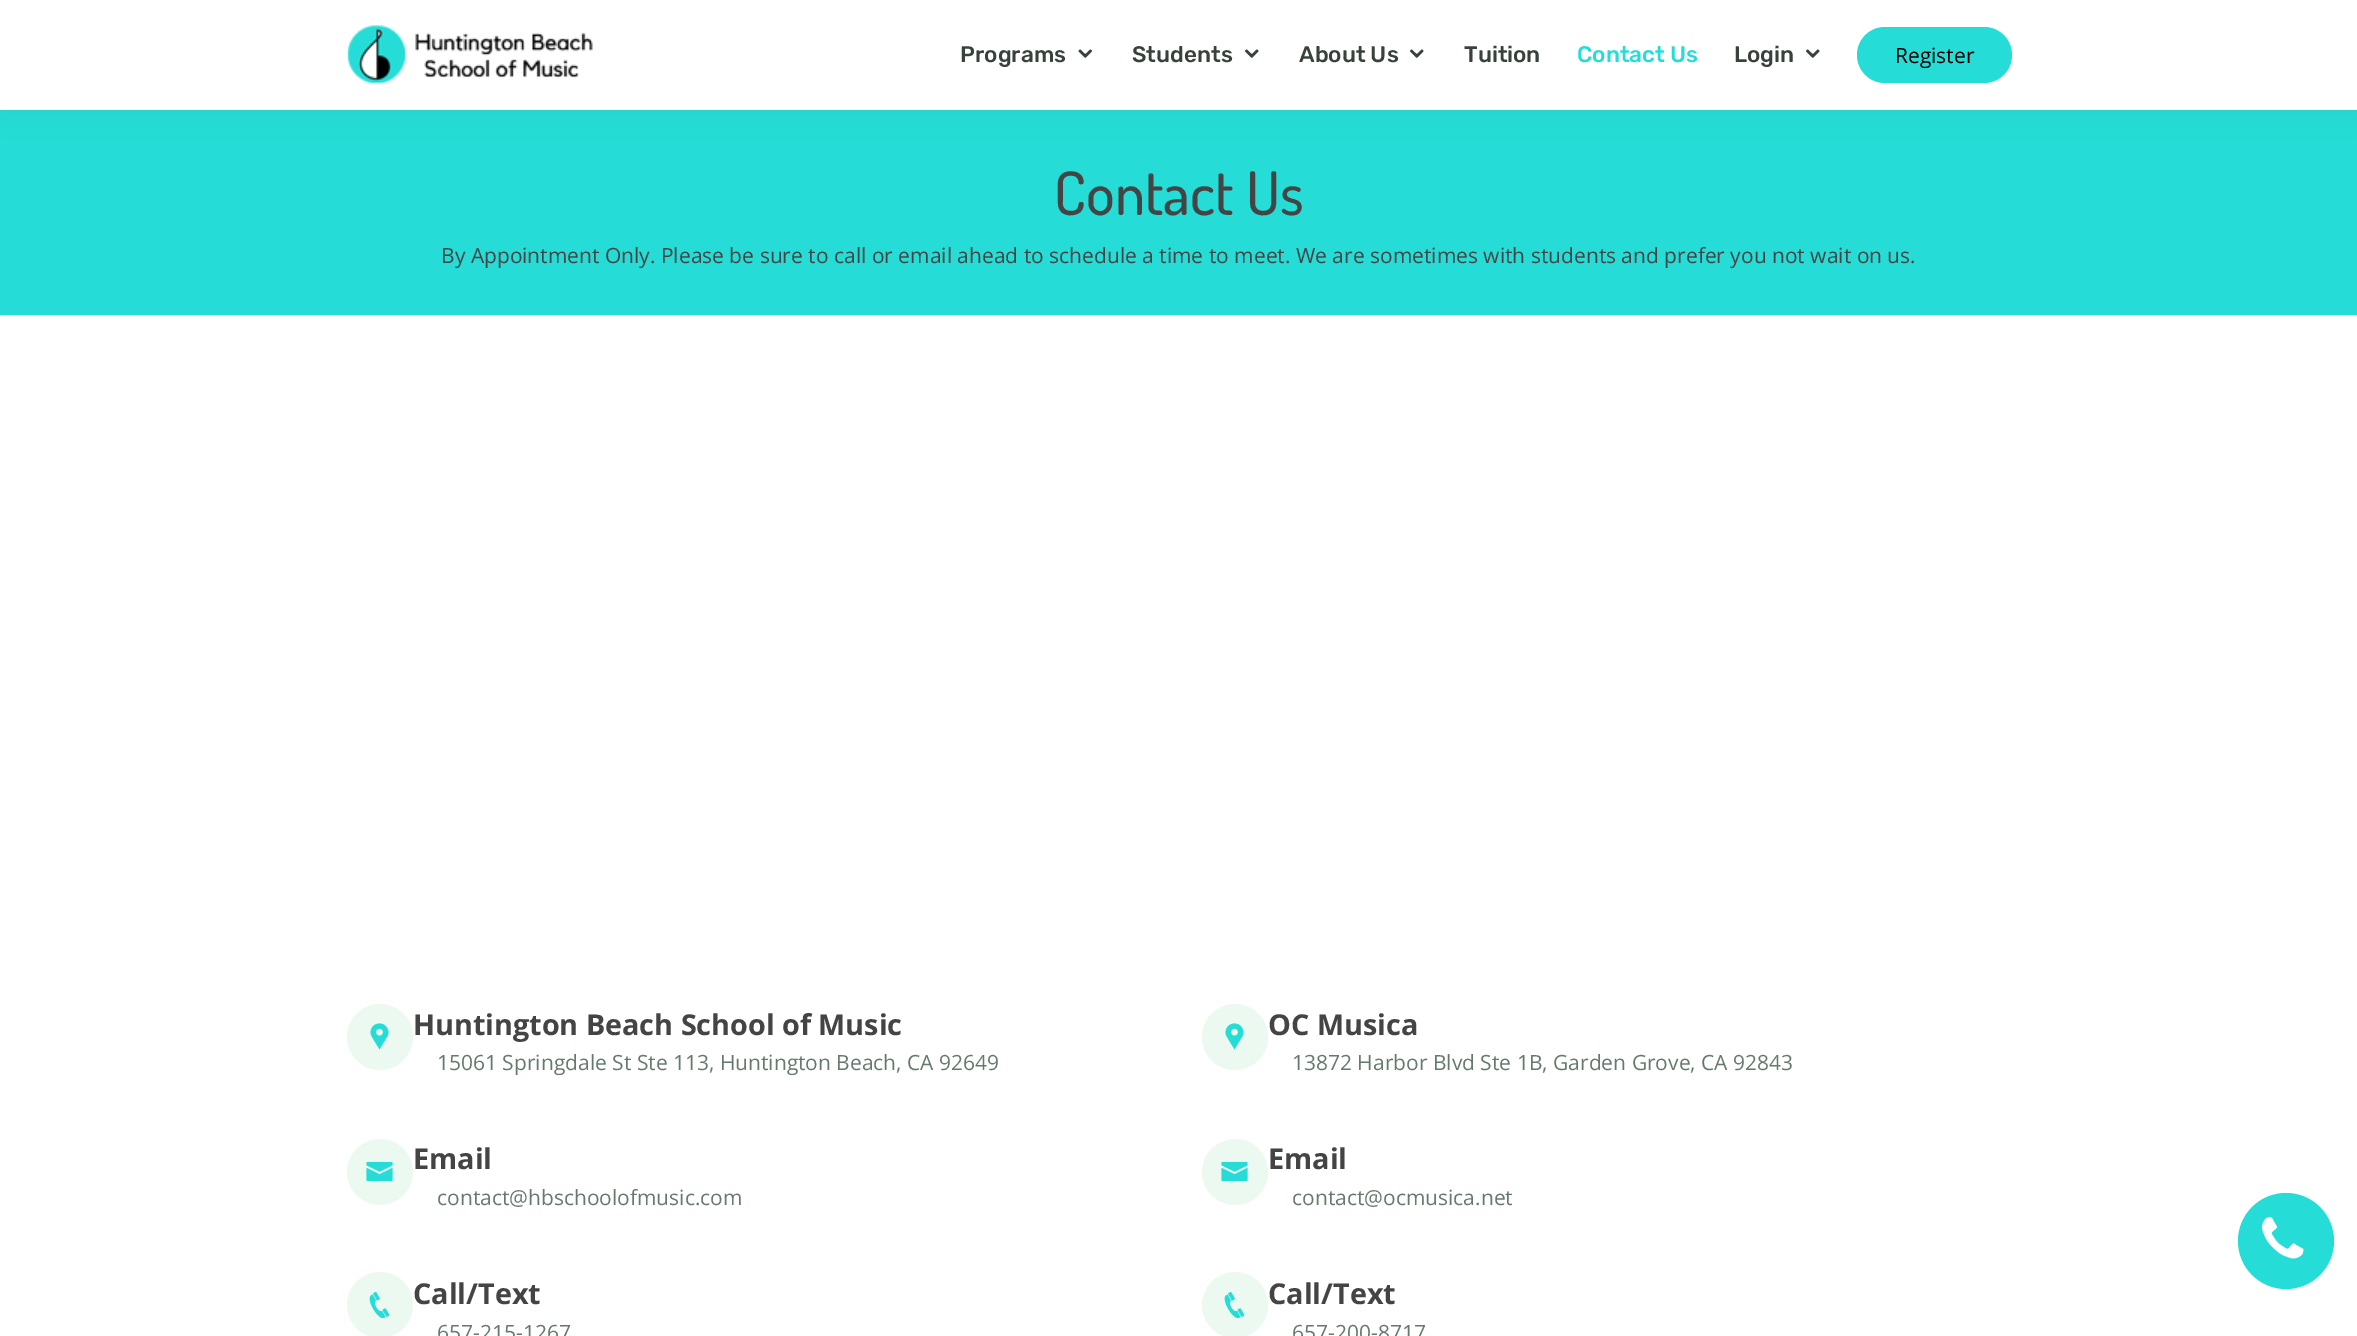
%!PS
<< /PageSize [2357 1336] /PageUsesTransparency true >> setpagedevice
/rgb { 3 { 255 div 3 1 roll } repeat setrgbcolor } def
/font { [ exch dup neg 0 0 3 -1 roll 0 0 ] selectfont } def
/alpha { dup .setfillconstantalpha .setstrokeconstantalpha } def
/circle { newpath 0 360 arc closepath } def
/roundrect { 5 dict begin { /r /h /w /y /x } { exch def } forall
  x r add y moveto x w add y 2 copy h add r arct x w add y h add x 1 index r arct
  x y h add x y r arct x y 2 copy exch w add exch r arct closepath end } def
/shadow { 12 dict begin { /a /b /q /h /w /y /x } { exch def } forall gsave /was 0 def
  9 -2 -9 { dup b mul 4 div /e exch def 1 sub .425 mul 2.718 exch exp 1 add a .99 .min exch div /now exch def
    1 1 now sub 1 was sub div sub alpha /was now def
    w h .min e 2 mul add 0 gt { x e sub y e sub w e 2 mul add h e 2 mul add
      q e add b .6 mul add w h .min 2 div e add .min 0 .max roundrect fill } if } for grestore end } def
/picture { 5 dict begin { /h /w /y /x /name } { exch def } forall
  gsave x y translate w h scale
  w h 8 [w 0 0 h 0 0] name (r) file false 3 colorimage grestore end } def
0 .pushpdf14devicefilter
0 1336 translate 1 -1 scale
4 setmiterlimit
255 255 255 rgb
0 0 2357 1336 rectfill
37 221 214 rgb
0 110 2357 205 rectfill
55 66 59 rgb
0 0 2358 110 0 13.5 0.08 shadow
255 255 255 rgb
0 0 2357 110 rectfill
(img/1.rgb) 346 24 247 61 picture
(img/2.rgb) 1078 49 14 9 picture
(img/3.rgb) 1245 49 14 9 picture
(img/3.rgb) 1410 49 14 9 picture
(img/3.rgb) 1806 49 14 9 picture
37 221 214 rgb
1857 27 155 56 28 roundrect fill
236 249 240 rgb
380 1037 33 circle fill
(img/4.rgb) 370 1023 19 27 picture
380 1172 33 circle fill
(img/5.rgb) 366 1161 27 20 picture
380 1305 33 circle fill
(img/6.rgb) 369 1291 21 28 picture
1235 1037 33 circle fill
(img/4.rgb) 1225 1023 19 27 picture
1235 1172 33 circle fill
(img/5.rgb) 1221 1161 27 20 picture
1235 1305 33 circle fill
(img/6.rgb) 1224 1291 21 28 picture
37 221 214 rgb
2286 1241 48 circle fill
(img/7.rgb) 2262 1217 42 42 picture
/Rubik-Medium 22.5 font
55 66 59 rgb
[
  [(Programs) 960 62]
  [(Students) 1132 62]
  [(About Us) 1299 62]
  [(Tuition) 1464 62]
] { aload pop moveto show } forall
37 221 214 rgb
1577 62 moveto (Contact Us) show
55 66 59 rgb
1734 62 moveto (Login) show
/OpenSans-Regular 21 font
0 0 0 rgb
1895 63 moveto (Register) show
/Dosis-Medium 60 font
68 68 68 rgb
1054 215 moveto (Contact Us) show
/OpenSans-Regular 21 font
441 263 moveto (By Appointment Only. Please be sure to call or email ahead to schedule a time to meet. We are sometimes with students and prefer you not wait on us.) show
/OpenSans-Bold 28.75 font
413 1035 moveto (Huntington Beach School of Music) show
/OpenSans-Regular 21 font
101 122 109 rgb
437 1070 moveto (15061 Springdale St Ste 113, Huntington Beach, CA 92649) show
/OpenSans-Bold 28.75 font
68 68 68 rgb
413 1169 moveto (Email) show
/OpenSans-Regular 21 font
101 122 109 rgb
437 1205 moveto (contact@hbschoolofmusic.com) show
/OpenSans-Bold 28.75 font
68 68 68 rgb
413 1304 moveto (Call/Text) show
/OpenSans-Regular 21 font
101 122 109 rgb
437 1340 moveto (657-215-1267) show
/OpenSans-Bold 28.75 font
68 68 68 rgb
1268 1035 moveto (OC Musica) show
/OpenSans-Regular 21 font
101 122 109 rgb
1292 1070 moveto (13872 Harbor Blvd Ste 1B, Garden Grove, CA 92843) show
/OpenSans-Bold 28.75 font
68 68 68 rgb
1268 1169 moveto (Email) show
/OpenSans-Regular 21 font
101 122 109 rgb
1292 1205 moveto (contact@ocmusica.net) show
/OpenSans-Bold 28.75 font
68 68 68 rgb
1268 1304 moveto (Call/Text) show
/OpenSans-Regular 21 font
101 122 109 rgb
1292 1340 moveto (657-200-8717) show
.poppdf14devicefilter showpage
